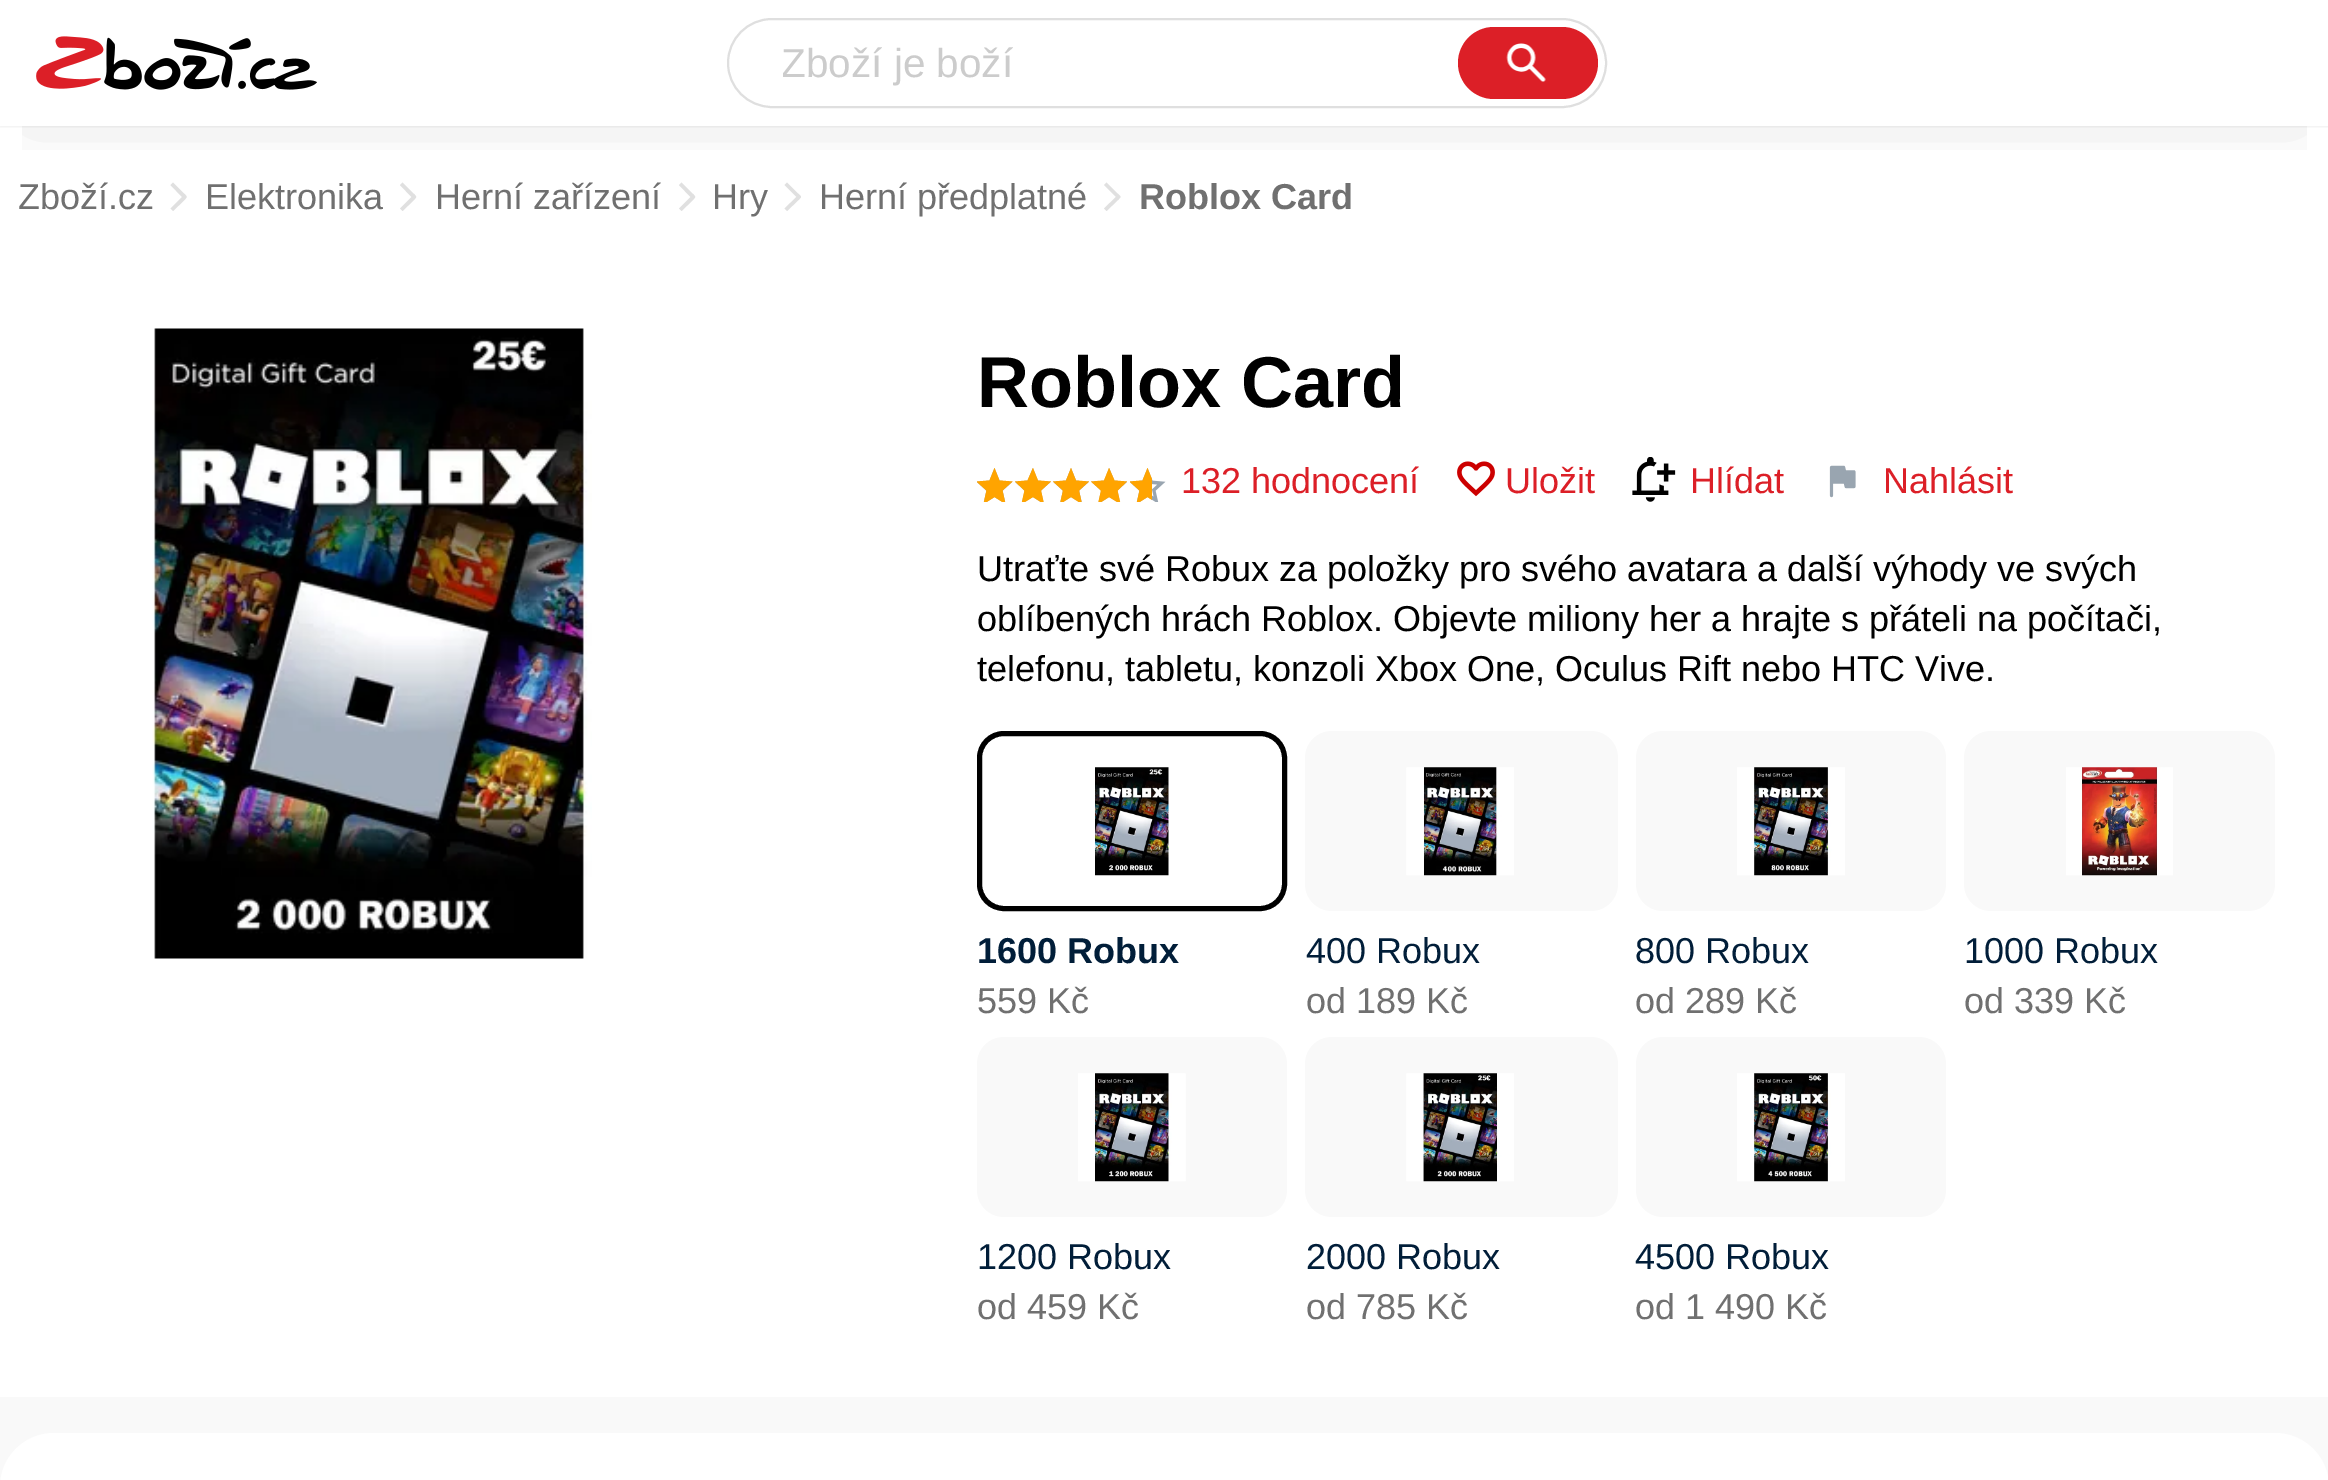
%!PS
<< /PageSize [2328 1480] /PageUsesTransparency true >> setpagedevice
/rgb { 3 { 255 div 3 1 roll } repeat setrgbcolor } def
/font { [ exch dup neg 0 0 3 -1 roll 0 0 ] selectfont } def
/alpha { dup .setfillconstantalpha .setstrokeconstantalpha } def
/roundrect { 5 dict begin { /r /h /w /y /x } { exch def } forall
  x r add y moveto x w add y 2 copy h add r arct x w add y h add x 1 index r arct
  x y h add x y r arct x y 2 copy exch w add exch r arct closepath end } def
/shadow { 12 dict begin { /a /b /q /h /w /y /x } { exch def } forall gsave /was 0 def
  9 -2 -9 { dup b mul 4 div /e exch def 1 sub .425 mul 2.718 exch exp 1 add a .99 .min exch div /now exch def
    1 1 now sub 1 was sub div sub alpha /was now def
    w h .min e 2 mul add 0 gt { x e sub y e sub w e 2 mul add h e 2 mul add
      q e add b .6 mul add w h .min 2 div e add .min 0 .max roundrect fill } if } for grestore end } def
/picture { 5 dict begin { /h /w /y /x /name } { exch def } forall
  gsave x y translate w h scale
  w h 8 [w 0 0 h 0 0] name (r) file false 3 colorimage grestore end } def
0 .pushpdf14devicefilter
0 1480 translate 1 -1 scale
4 setmiterlimit
255 255 255 rgb
0 0 2328 1480 rectfill
224 224 224 rgb
173 211 moveto 170.5 208.5 lineto 182 197 lineto 170.5 185 lineto 173 182.5 lineto 184 193.5 lineto 187.5 197 187.5 196.5 184 200.5 curveto closepath fill
402.5 211 moveto 400 208.5 lineto 411.5 197 lineto 400 185 lineto 402.5 182.5 lineto 413.5 193.5 lineto 417 197 417 196.5 413.5 200.5 curveto closepath fill
681.5 211 moveto 679 208.5 lineto 690.5 197 lineto 679 185 lineto 681.5 182.5 lineto 692.5 193.5 lineto 696 197 696 196.5 692.5 200.5 curveto closepath fill
787 211 moveto 784.5 208.5 lineto 796.5 197 lineto 784.5 185 lineto 787 182.5 lineto 798 193.5 lineto 802 197 802 196.5 798 200.5 curveto closepath fill
1106.5 211 moveto 1104 208.5 lineto 1116 197 lineto 1104 185 lineto 1106.5 182.5 lineto 1117.5 193.5 lineto 1121.5 197 1121.5 196.5 1117.5 200.5 curveto closepath fill
gsave
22 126 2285 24 rectclip
0 0 0 rgb
27 45 2275 72 0 34 0.12 shadow
grestore
gsave
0 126 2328 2 rectclip
0 0 0 rgb
0 0 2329 126 0 2 0.1 shadow
grestore
(img/1.rgb) 36 36 281 54 picture
223 223 223 rgb
2 setlinewidth
728 19 878 88 44 roundrect stroke
220 31 39 rgb
1458 27 140 72 36 roundrect fill
(img/2.rgb) 1506 43 40 39 picture
249 249 249 rgb
0 1397 2328 83 rectfill
(img/3.rgb) 152 328 440 631 picture
(img/4.rgb) 977 468 36 34 picture
(img/5.rgb) 1015 468 36 34 picture
(img/6.rgb) 1053 468 36 34 picture
(img/7.rgb) 1091 468 36 34 picture
(img/4.rgb) 1130 468 36 34 picture
gsave
977 468 36 34 rectclip
255 164 0 rgb
983.5 504 moveto 986.5 490.5 lineto 976.5 481.5 lineto 989.5 480.5 lineto 994.5 468 lineto 999.5 480.5 lineto 1012.5 481.5 lineto 1002.5 490.5 lineto 1005.5 504 lineto 994.5 497 lineto closepath fill
grestore
gsave
1015 468 36 34 rectclip
255 164 0 rgb
1021.5 504 moveto 1024.5 490.5 lineto 1015 481.5 lineto 1027.5 480.5 lineto 1033 468 lineto 1038 480.5 lineto 1051 481.5 lineto 1041 490.5 lineto 1044 504 lineto 1033 497 lineto closepath fill
grestore
gsave
1053 468 36 34 rectclip
255 164 0 rgb
1060 504 moveto 1063 490.5 lineto 1053 481.5 lineto 1066 480.5 lineto 1071 468 lineto 1076 480.5 lineto 1089 481.5 lineto 1079 490.5 lineto 1082 504 lineto 1071 497 lineto closepath fill
grestore
gsave
1091 468 36 34 rectclip
255 164 0 rgb
1098 504 moveto 1101 490.5 lineto 1091 481.5 lineto 1104 480.5 lineto 1109 468 lineto 1114.5 480.5 lineto 1127 481.5 lineto 1117.5 490.5 lineto 1120.5 504 lineto 1109 497 lineto closepath fill
grestore
gsave
1130 468 22 34 rectclip
255 164 0 rgb
1136.5 504 moveto 1139.5 490.5 lineto 1129.5 481.5 lineto 1142.5 480.5 lineto 1147.5 468 lineto 1152.5 480.5 lineto 1165.5 481.5 lineto 1155.5 490.5 lineto 1158.5 504 lineto 1147.5 497 lineto closepath fill
grestore
(img/8.rgb) 1457 461 38 36 picture
(img/9.rgb) 1632 457 44 45 picture
(img/10.rgb) 1829 465 27 33 picture
0 0 0 rgb
5 setlinewidth
979.5 733.5 305 175 24.5 roundrect stroke
(img/11.rgb) 1094 767 75 109 picture
249 249 249 rgb
1305 731 313 180 27 roundrect fill
(img/12.rgb) 1406 767 108 109 picture
1636 731 310 180 27 roundrect fill
(img/13.rgb) 1737 767 108 109 picture
1964 731 311 180 27 roundrect fill
(img/14.rgb) 2066 767 107 109 picture
977 1037 310 180 27 roundrect fill
(img/15.rgb) 1078 1073 108 109 picture
1305 1037 313 180 27 roundrect fill
(img/16.rgb) 1406 1073 108 109 picture
1636 1037 310 180 27 roundrect fill
(img/17.rgb) 1737 1073 108 109 picture
255 255 255 rgb
0 1433 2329 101 54 roundrect fill
gsave
783 41 675 47 rectclip
/LiberationSans-Regular 40.5 font
204 204 204 rgb
781 77 moveto (Zboží je boží) show
grestore
/LiberationSans-Regular 36 font
112 112 112 rgb
[
  [(Zboží.cz) 18 209]
  [(Elektronika) 205 209]
  [(Herní zařízení) 435 209]
  [(Hry) 712 209]
  [(Herní předplatné) 819 209]
] { aload pop moveto show } forall
/LiberationSans-Bold 36 font
1139 209 moveto (Roblox Card) show
/LiberationSans-Bold 72 font
0 0 0 rgb
977 407 moveto (Roblox Card) show
/LiberationSans-Regular 36 font
220 31 39 rgb
[
  [(132 hodnocení) 1181 493]
  [(Uložit) 1505 493]
  [(Hlídat) 1690 493]
  [(Nahlásit) 1883 493]
] { aload pop moveto show } forall
0 0 0 rgb
[
  [(Utraťte své Robux za položky pro svého avatara a další výhody ve svých) 977 581]
  [(oblíbených hrách Roblox. Objevte miliony her a hrajte s přáteli na počítači,) 977 631]
  [(telefonu, tabletu, konzoli Xbox One, Oculus Rift nebo HTC Vive.) 977 681]
] { aload pop moveto show } forall
/LiberationSans-Bold 36 font
1 30 57 rgb
977 963 moveto (1600 Robux) show
/LiberationSans-Regular 36 font
112 112 112 rgb
977 1013 moveto (559 Kč) show
1 30 57 rgb
1306 963 moveto (400 Robux) show
112 112 112 rgb
1306 1013 moveto (od 189 Kč) show
1 30 57 rgb
1635 963 moveto (800 Robux) show
112 112 112 rgb
1635 1013 moveto (od 289 Kč) show
1 30 57 rgb
1964 963 moveto (1000 Robux) show
112 112 112 rgb
1964 1013 moveto (od 339 Kč) show
1 30 57 rgb
977 1269 moveto (1200 Robux) show
112 112 112 rgb
977 1319 moveto (od 459 Kč) show
1 30 57 rgb
1306 1269 moveto (2000 Robux) show
112 112 112 rgb
1306 1319 moveto (od 785 Kč) show
1 30 57 rgb
1635 1269 moveto (4500 Robux) show
112 112 112 rgb
1635 1319 moveto (od 1 490 Kč) show
.poppdf14devicefilter showpage
